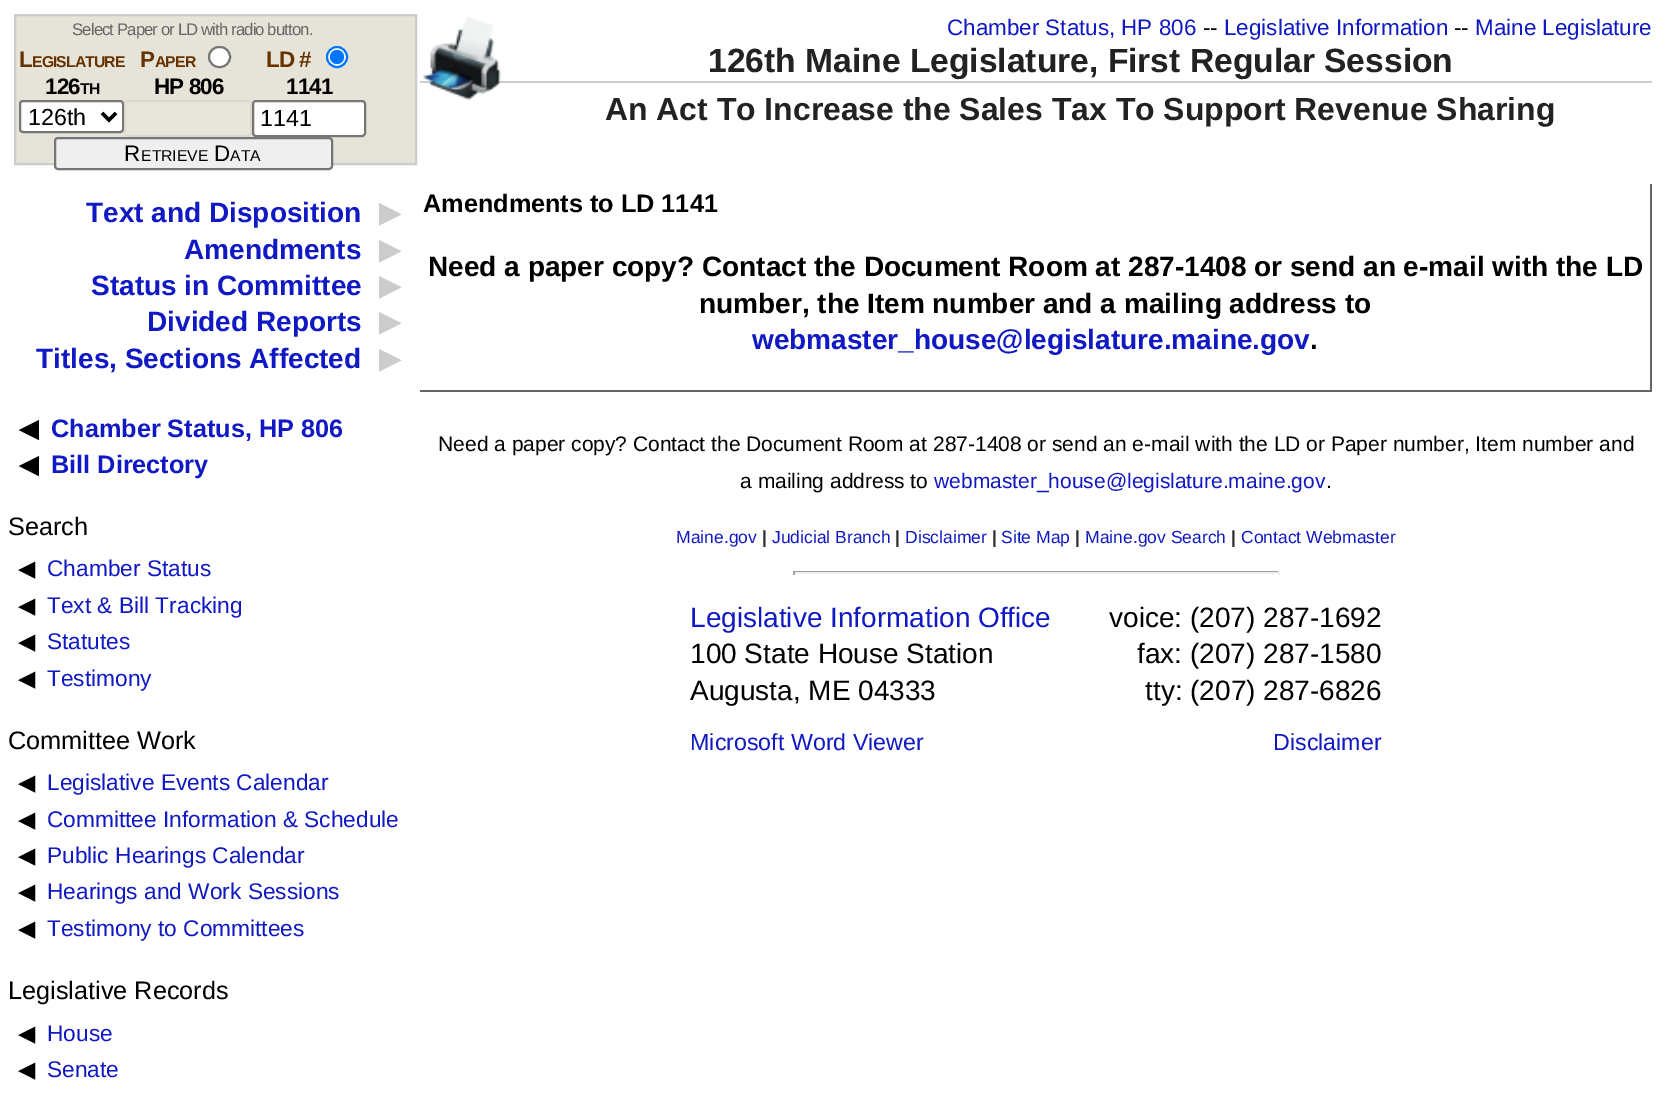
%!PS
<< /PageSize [1680 1115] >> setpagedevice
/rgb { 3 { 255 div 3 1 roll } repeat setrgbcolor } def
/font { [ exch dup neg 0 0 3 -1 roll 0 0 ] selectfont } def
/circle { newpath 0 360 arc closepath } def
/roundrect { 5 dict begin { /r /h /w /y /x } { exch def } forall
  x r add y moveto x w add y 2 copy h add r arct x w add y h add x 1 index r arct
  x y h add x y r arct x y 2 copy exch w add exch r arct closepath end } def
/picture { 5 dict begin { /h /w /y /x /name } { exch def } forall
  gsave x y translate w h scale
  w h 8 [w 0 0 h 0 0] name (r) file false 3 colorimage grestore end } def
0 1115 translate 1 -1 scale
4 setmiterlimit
255 255 255 rgb
0 0 1680 1115 rectfill
230 227 216 rgb
15 15 moveto 416 15 lineto 416 164 lineto 15 164 lineto closepath gsave fill grestore
204 204 204 rgb
2 setlinewidth
stroke
255 255 255 rgb
20 101 103 31 3 roundrect gsave fill grestore
118 118 118 rgb
stroke
0 0 0 rgb
3.5 setlinewidth
102 113 moveto 109 120 lineto 116 113 lineto stroke
255 255 255 rgb
209 47 21 20 10 roundrect gsave fill grestore
118 118 118 rgb
2 setlinewidth
stroke
233 230 220 rgb
125 101 126 35 3 roundrect gsave fill grestore
219 216 206 rgb
stroke
255 255 255 rgb
337 57 10 circle gsave fill grestore
0 117 255 rgb
stroke
337 57 7 circle fill
255 255 255 rgb
253 101 112 35 3 roundrect gsave fill grestore
118 118 118 rgb
stroke
239 239 239 rgb
55 138 277 31 3 roundrect gsave fill grestore
118 118 118 rgb
stroke
204 204 204 rgb
420 81 1232 2 rectfill
(img/1.rgb) 423 17 78 83 picture
[
  [1650 184 2 208 102 102 102]
  [420 390 1232 2 102 102 102]
  [793 571 486 1 159 159 159]
  [1278 571 2 4 238 238 238]
  [793 572 486 2 238 238 238]
  [793 571 2 4 159 159 159]
] { aload pop rgb rectfill } forall
/LiberationSans-Regular 16.75 font
102 102 102 rgb
72 35 moveto -0.9 0 (Select Paper or LD with radio button.) ashow
/LiberationSans-Bold 22.4 font
102 51 0 rgb
19 67 moveto -0.9 0 (L) ashow
/LiberationSans-Bold 15.75 font
32 67 moveto -0.9 0 (EGISLATURE) ashow
/LiberationSans-Bold 22.4 font
0 0 0 rgb
45 94 moveto -0.9 0 (126) ashow
/LiberationSans-Bold 15.75 font
80 94 moveto -0.9 0 (TH) ashow
/LiberationSans-Regular 23.25 font
28 125 moveto (126th) show
/LiberationSans-Bold 22.4 font
102 51 0 rgb
140 67 moveto -0.9 0 (P) ashow
/LiberationSans-Bold 15.75 font
155 67 moveto -0.9 0 (APER) ashow
/LiberationSans-Bold 22.4 font
0 0 0 rgb
154 94 moveto -0.9 0 (HP 806) ashow
102 51 0 rgb
266 67 moveto -0.9 0 (LD #) ashow
0 0 0 rgb
286 94 moveto -0.9 0 (1141) ashow
/LiberationSans-Regular 23.25 font
260 126 moveto (1141) show
/LiberationSans-Regular 22.4 font
124 161 moveto (R) show
/LiberationSans-Regular 15.75 font
141 161 moveto (ETRIEVE) show
/LiberationSans-Regular 22.4 font
214 161 moveto (D) show
/LiberationSans-Regular 15.75 font
230 161 moveto (ATA) show
/LiberationSans-Regular 22.4 font
16 25 195 rgb
947 35 moveto (Chamber Status, HP 806) show
0 0 0 rgb
1203 35 moveto (--) show
16 25 195 rgb
1224 35 moveto (Legislative Information) show
0 0 0 rgb
1454 35 moveto (--) show
16 25 195 rgb
1475 35 moveto (Maine Legislature) show
/LiberationSans-Bold 33.6 font
34 34 34 rgb
708 72 moveto (126th Maine Legislature, First Regular Session) show
/LiberationSans-Bold 31.9 font
605 120 moveto (An Act To Increase the Sales Tax To Support Revenue Sharing) show
/LiberationSans-Bold 28 font
16 25 195 rgb
86 222 moveto (Text and Disposition) show
/DejaVuSans-Bold 28 font
204 204 204 rgb
379 222 moveto (▶) show
/LiberationSans-Bold 28 font
16 25 195 rgb
184 259 moveto (Amendments) show
/DejaVuSans-Bold 28 font
204 204 204 rgb
379 259 moveto (▶) show
/LiberationSans-Bold 28 font
16 25 195 rgb
91 295 moveto (Status in Committee) show
/DejaVuSans-Bold 28 font
204 204 204 rgb
379 295 moveto (▶) show
/LiberationSans-Bold 28 font
16 25 195 rgb
147 331 moveto (Divided Reports) show
/DejaVuSans-Bold 28 font
204 204 204 rgb
379 331 moveto (▶) show
/LiberationSans-Bold 28 font
16 25 195 rgb
36 368 moveto (Titles, Sections Affected) show
/DejaVuSans-Bold 28 font
204 204 204 rgb
379 368 moveto (▶) show
/DejaVuSans-Bold 25.25 font
0 0 0 rgb
19 437 moveto (◀) show
/LiberationSans-Bold 25.25 font
16 25 195 rgb
51 437 moveto (Chamber Status, HP 806) show
/DejaVuSans-Bold 25.25 font
0 0 0 rgb
19 473 moveto (◀) show
/LiberationSans-Bold 25.25 font
16 25 195 rgb
51 473 moveto (Bill Directory) show
/LiberationSans-Regular 25.25 font
0 0 0 rgb
8 535 moveto (Search) show
/DejaVuSans-Regular 22.7 font
18 576 moveto (◀) show
/LiberationSans-Regular 22.7 font
16 25 195 rgb
47 576 moveto (Chamber Status) show
/DejaVuSans-Regular 22.7 font
0 0 0 rgb
18 613 moveto (◀) show
/LiberationSans-Regular 22.7 font
16 25 195 rgb
47 613 moveto (Text & Bill Tracking) show
/DejaVuSans-Regular 22.7 font
0 0 0 rgb
18 649 moveto (◀) show
/LiberationSans-Regular 22.7 font
16 25 195 rgb
47 649 moveto (Statutes) show
/DejaVuSans-Regular 22.7 font
0 0 0 rgb
18 686 moveto (◀) show
/LiberationSans-Regular 22.7 font
16 25 195 rgb
47 686 moveto (Testimony) show
/LiberationSans-Regular 25.25 font
0 0 0 rgb
8 749 moveto (Committee Work) show
/DejaVuSans-Regular 22.7 font
18 790 moveto (◀) show
/LiberationSans-Regular 22.7 font
16 25 195 rgb
47 790 moveto (Legislative Events Calendar) show
/DejaVuSans-Regular 22.7 font
0 0 0 rgb
18 827 moveto (◀) show
/LiberationSans-Regular 22.7 font
16 25 195 rgb
47 827 moveto (Committee Information & Schedule) show
/DejaVuSans-Regular 22.7 font
0 0 0 rgb
18 863 moveto (◀) show
/LiberationSans-Regular 22.7 font
16 25 195 rgb
47 863 moveto (Public Hearings Calendar) show
/DejaVuSans-Regular 22.7 font
0 0 0 rgb
18 899 moveto (◀) show
/LiberationSans-Regular 22.7 font
16 25 195 rgb
47 899 moveto (Hearings and Work Sessions) show
/DejaVuSans-Regular 22.7 font
0 0 0 rgb
18 936 moveto (◀) show
/LiberationSans-Regular 22.7 font
16 25 195 rgb
47 936 moveto (Testimony to Committees) show
/LiberationSans-Regular 25.25 font
0 0 0 rgb
8 999 moveto (Legislative Records) show
/DejaVuSans-Regular 22.7 font
18 1041 moveto (◀) show
/LiberationSans-Regular 22.7 font
16 25 195 rgb
47 1041 moveto (House) show
/DejaVuSans-Regular 22.7 font
0 0 0 rgb
18 1077 moveto (◀) show
/LiberationSans-Regular 22.7 font
16 25 195 rgb
47 1077 moveto (Senate) show
/LiberationSans-Bold 25.25 font
0 0 0 rgb
423 212 moveto (Amendments to LD 1141) show
/LiberationSans-Bold 28 font
428 276 moveto (Need a paper copy? Contact the Document Room at 287-1408 or send an e-mail with the LD) show
699 313 moveto (number, the Item number and a mailing address to) show
16 25 195 rgb
752 349 moveto (webmaster_house@legislature.maine.gov) show
0 0 0 rgb
1310 349 moveto (.) show
/LiberationSans-Regular 21 font
438 451 moveto (Need a paper copy? Contact the Document Room at 287-1408 or send an e-mail with the LD or Paper number, Item number and) show
740 488 moveto (a mailing address to) show
16 25 195 rgb
934 488 moveto (webmaster_house@legislature.maine.gov) show
0 0 0 rgb
1326 488 moveto (.) show
/LiberationSans-Regular 17.5 font
16 25 195 rgb
676 543 moveto (Maine.gov) show
/LiberationSans-Bold 17.5 font
48 48 48 rgb
762 543 moveto (|) show
/LiberationSans-Regular 17.5 font
16 25 195 rgb
772 543 moveto (Judicial Branch) show
/LiberationSans-Bold 17.5 font
48 48 48 rgb
895 543 moveto (|) show
/LiberationSans-Regular 17.5 font
16 25 195 rgb
905 543 moveto (Disclaimer) show
/LiberationSans-Bold 17.5 font
48 48 48 rgb
992 543 moveto (|) show
/LiberationSans-Regular 17.5 font
16 25 195 rgb
1001 543 moveto (Site Map) show
/LiberationSans-Bold 17.5 font
48 48 48 rgb
1075 543 moveto (|) show
/LiberationSans-Regular 17.5 font
16 25 195 rgb
1085 543 moveto (Maine.gov Search) show
/LiberationSans-Bold 17.5 font
48 48 48 rgb
1231 543 moveto (|) show
/LiberationSans-Regular 17.5 font
16 25 195 rgb
1241 543 moveto (Contact Webmaster) show
/LiberationSans-Regular 28 font
690 627 moveto (Legislative Information Office) show
0 0 0 rgb
[
  [(100 State House Station) 690 663]
  [(Augusta, ME 04333) 690 700]
  [(voice: \(207\) 287-1692) 1109 627]
  [(fax: \(207\) 287-1580) 1137 663]
  [(tty: \(207\) 287-6826) 1145 700]
] { aload pop moveto show } forall
/LiberationSans-Regular 23.25 font
16 25 195 rgb
690 750 moveto (Microsoft Word Viewer) show
1273 750 moveto (Disclaimer) show
showpage
